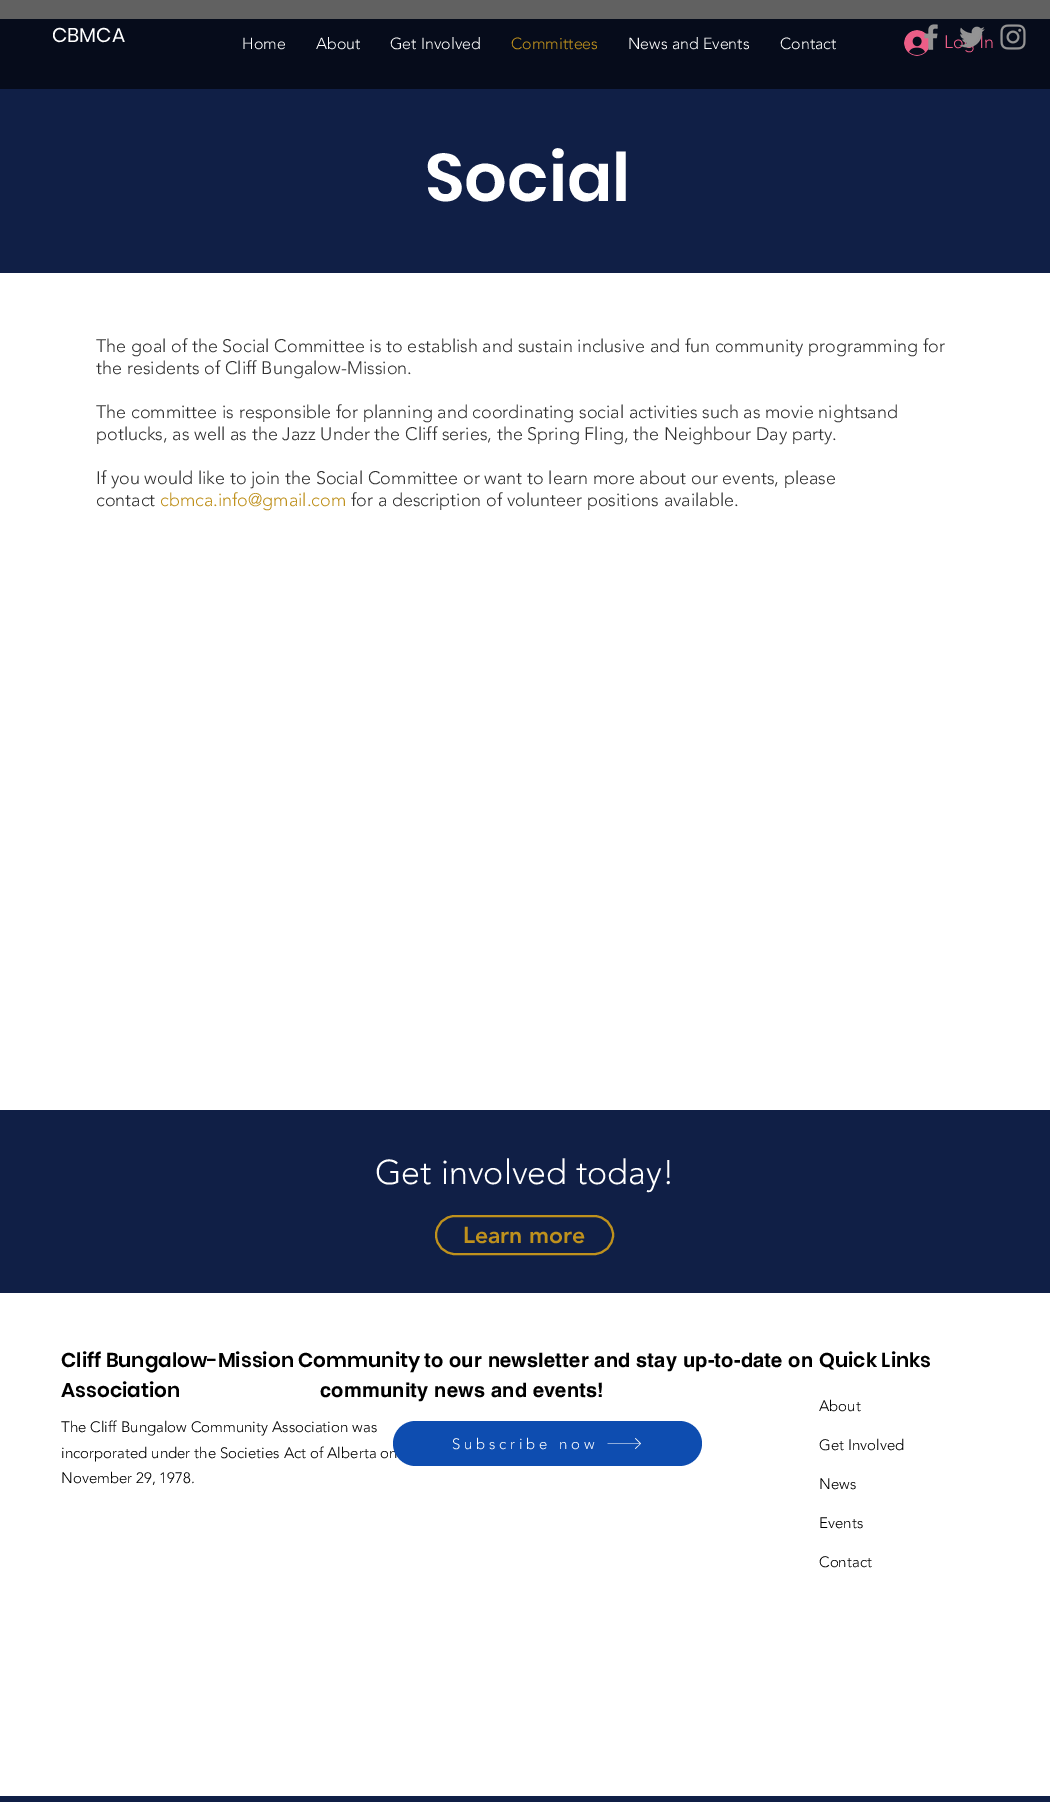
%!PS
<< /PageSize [1050 1802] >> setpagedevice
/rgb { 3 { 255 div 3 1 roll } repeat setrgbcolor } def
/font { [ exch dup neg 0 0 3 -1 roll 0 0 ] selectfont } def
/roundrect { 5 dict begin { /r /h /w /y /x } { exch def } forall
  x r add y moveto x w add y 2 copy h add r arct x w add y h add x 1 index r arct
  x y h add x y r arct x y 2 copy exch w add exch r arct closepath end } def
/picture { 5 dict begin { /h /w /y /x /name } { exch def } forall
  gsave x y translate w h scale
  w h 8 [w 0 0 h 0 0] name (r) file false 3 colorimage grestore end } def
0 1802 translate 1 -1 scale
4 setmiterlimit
255 255 255 rgb
0 0 1050 1802 rectfill
97 97 97 rgb
0 0 1050 19 rectfill
6 12 27 rgb
0 19 1050 70 rectfill
(img/4.rgb) 904 30 25 26 picture
(img/1.rgb) 924 24 14 26 picture
(img/3.rgb) 1000 24 26 26 picture
16 31 70 rgb
0 89 1050 184 rectfill
0 1110 1050 183 rectfill
191 145 29 rgb
2 setlinewidth
436 1216 177 38 19 roundrect stroke
16 31 70 rgb
0 1796 1050 6 rectfill
/Poppins-Regular 20 font
255 255 255 rgb
52 42 moveto (CBMCA) show
/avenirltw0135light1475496-Light 16 font
[
  [(Home) 242 49]
  [(About) 316 49]
  [(Get Involved) 390 49]
] { aload pop moveto show } forall
191 145 29 rgb
511 49 moveto (Committees) show
255 255 255 rgb
628 49 moveto (News and Events) show
780 49 moveto (Contact) show
/avenirltw0135light1475496-Light 18 font
236 94 135 rgb
944 48 moveto (Log In) show
(img/2.rgb) 959 26 26 22 picture
/Poppins-SemiBold 67 font
255 255 255 rgb
425 201 moveto (Social) show
/avenirltw0135light1475496-Light 18 font
51 51 51 rgb
[
  [(The goal of the Social Committee is to establish and sustain inclusive and fun community programming for) 96 352]
  [(the residents of Cliff Bungalow-Mission.) 96 374]
  [(The committee is responsible for planning and coordinating social activities such as movie nightsand) 96 418]
  [(potlucks, as well as the Jazz Under the Cliff series, the Spring Fling, the Neighbour Day party.) 96 440]
  [(If you would like to join the Social Committee or want to learn more about our events, please) 96 484]
  [(contact) 96 506]
] { aload pop moveto show } forall
191 145 29 rgb
160 506 moveto (cbmca.info@gmail.com) show
51 51 51 rgb
351 506 moveto (for a description of volunteer positions available.) show
/avenirltw0135light1475496-Light 34 font
255 255 255 rgb
375 1184 moveto (Get involved today!) show
/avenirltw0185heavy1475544-Black 23 font
191 145 29 rgb
463 1243 moveto (Learn more) show
/Poppins-SemiBold 20 font
0 0 0 rgb
61 1367 moveto (Cliff Bungalow-Mission Community) show
61 1397 moveto (Association) show
/avenirltw0135light1475496-Light 15 font
[
  [(The Cliff Bungalow Community Association was) 61 1432]
  [(incorporated under the Societies Act of Alberta on) 61 1458]
  [(November 29, 1978.) 61 1483]
] { aload pop moveto show } forall
/helvetica-Bold 20 font
424 1367 moveto 0.2 0 (to our newsletter and stay up-to-date on) ashow
320 1397 moveto 0.2 0 (community news and events!) ashow
14 77 176 rgb
393 1421 309 45 22.5 roundrect fill
/avenirltw0135light1475496-Light 15 font
255 255 255 rgb
452 1449 moveto 3.75 0 (Subscribe now) ashow
635.5 1438 moveto 635 1438.5 lineto 640 1443.5 lineto 607.5 1443.5 lineto 607.5 1444 lineto 640 1444 lineto 635 1448.5 lineto 635.5 1449 lineto 641 1443.5 lineto closepath fill
/Poppins-SemiBold 20 font
0 0 0 rgb
819 1367 moveto (Quick Links) show
/avenirltw0135light1475496-Light 15 font
[
  [(About) 819 1411]
  [(Get Involved) 819 1450]
  [(News) 819 1489]
  [(Events) 819 1528]
  [(Contact) 819 1567]
] { aload pop moveto show } forall
showpage
